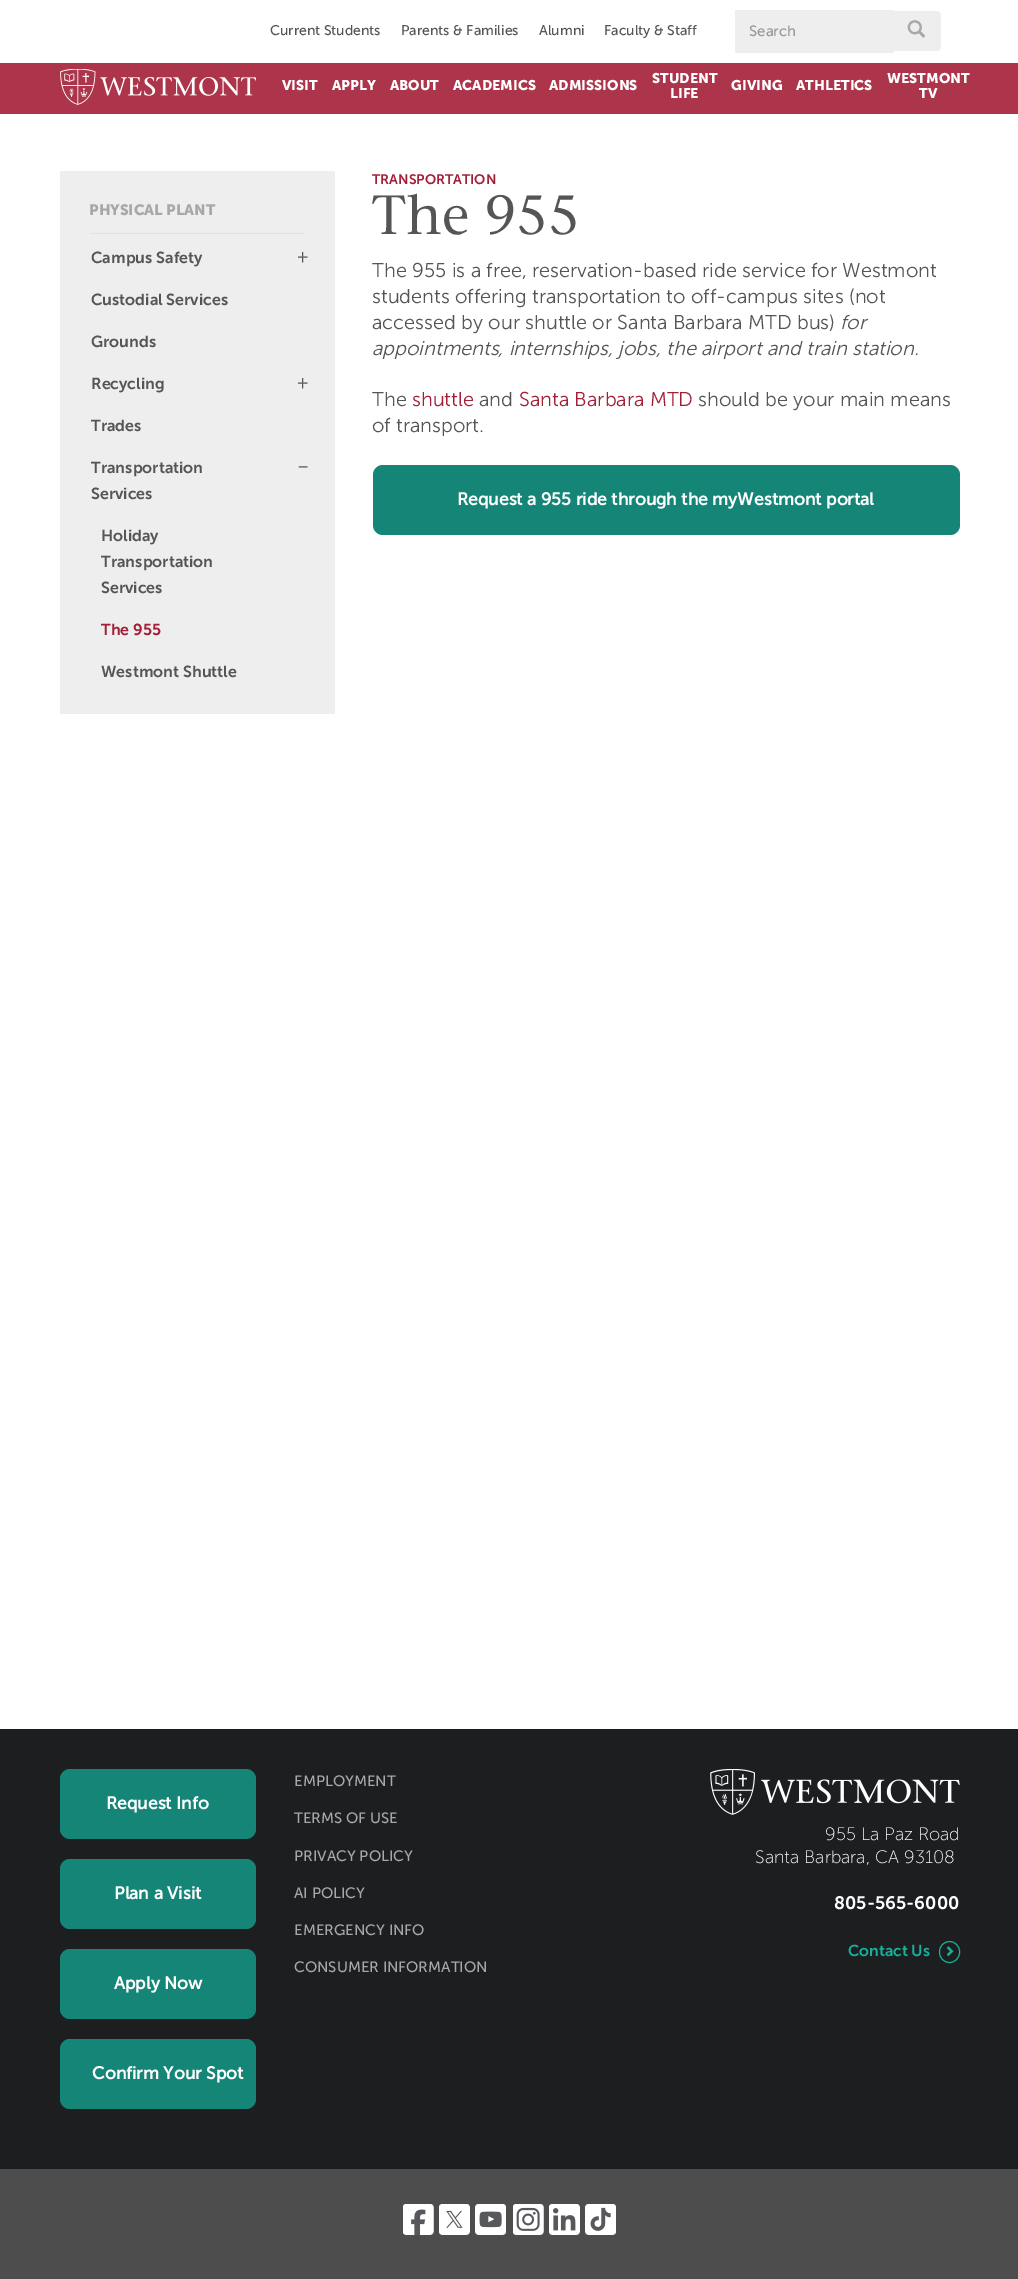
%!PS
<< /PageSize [1018 2279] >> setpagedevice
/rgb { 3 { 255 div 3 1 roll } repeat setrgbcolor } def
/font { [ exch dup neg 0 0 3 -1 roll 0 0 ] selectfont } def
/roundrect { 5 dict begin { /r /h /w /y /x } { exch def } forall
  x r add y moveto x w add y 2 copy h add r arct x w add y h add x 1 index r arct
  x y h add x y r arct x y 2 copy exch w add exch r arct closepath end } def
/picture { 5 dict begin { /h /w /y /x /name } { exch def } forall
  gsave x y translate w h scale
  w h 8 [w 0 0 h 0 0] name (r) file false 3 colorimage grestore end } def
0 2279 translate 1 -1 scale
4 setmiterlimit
255 255 255 rgb
0 0 1018 2279 rectfill
238 238 238 rgb
735 10 159 43 rectfill
893 11 moveto 936 11 lineto 939 11 941 13 941 16 curveto 941 46 lineto 941 49 939 51 936 51 curveto 893 51 lineto closepath fill
(img/1.rgb) 907 20 18 18 picture
172 53 75 rgb
0 63 1018 51 rectfill
(img/2.rgb) 60 69 196 36 picture
238 238 238 rgb
60 171 275 543 rectfill
225 225 225 rgb
90 233 215 1 rectfill
21 133 119 rgb
373 465 587 70 10 roundrect fill
29 30 31 rgb
0 1729 1018 440 rectfill
21 133 119 rgb
60 1769 196 70 10 roundrect fill
60 1859 196 70 10 roundrect fill
60 1949 196 70 10 roundrect fill
60 2039 196 70 10 roundrect fill
(img/3.rgb) 710 1769 250 46 picture
22 176 155 rgb
939.5 1941.5 20 21 10 roundrect stroke
(img/4.rgb) 946 1946 8 11 picture
77 77 77 rgb
0 2169 1018 110 rectfill
86 88 92 rgb
403 2204 31 31 rectfill
(img/5.rgb) 403 2204 31 31 picture
439 2204 31 31 rectfill
(img/6.rgb) 439 2204 31 31 picture
475 2204 31 31 rectfill
(img/7.rgb) 475 2204 31 31 picture
513 2204 31 31 rectfill
(img/8.rgb) 513 2204 31 31 picture
549 2204 31 31 rectfill
(img/9.rgb) 549 2204 31 31 picture
585 2204 31 31 rectfill
(img/10.rgb) 585 2204 31 31 picture
/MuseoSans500-Regular 14 font
85 85 85 rgb
[
  [(Current Students) 270 35]
  [(Parents & Families) 401 35]
  [(Alumni) 539 35]
  [(Faculty & Staff) 604 35]
] { aload pop moveto show } forall
/MuseoSans500-Regular 15 font
153 153 153 rgb
749 36 moveto (Search) show
/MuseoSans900-Regular 14 font
255 255 255 rgb
[
  [(VISIT) 282 90]
  [(APPLY) 332 90]
  [(ABOUT) 390 90]
  [(ACADEMICS) 453 90]
  [(ADMISSIONS) 549 90]
  [(STUDENT) 652 83]
  [(LIFE) 670 98]
  [(GIVING) 731 90]
  [(ATHLETICS) 796 90]
  [(WESTMONT) 887 83]
  [(TV) 919 98]
] { aload pop moveto show } forall
/MuseoSans900-Regular 15 font
168 168 168 rgb
89 215 moveto (PHYSICAL PLANT) show
/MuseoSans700-Regular 16 font
85 85 85 rgb
91 263 moveto (Campus Safety) show
/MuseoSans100-Bold 17.5 font
gsave 309 252 translate 180 rotate 0 0 moveto (+) show grestore
/MuseoSans700-Regular 16 font
[
  [(Custodial Services) 91 305]
  [(Grounds) 91 347]
  [(Recycling) 91 389]
] { aload pop moveto show } forall
/MuseoSans100-Bold 17.5 font
gsave 309 378 translate 180 rotate 0 0 moveto (+) show grestore
/MuseoSans700-Regular 16 font
[
  [(Trades) 91 431]
  [(Transportation) 91 473]
  [(Services) 91 499]
] { aload pop moveto show } forall
/MuseoSans100-Bold 17.5 font
298 472 moveto (–) show
/MuseoSans700-Regular 16 font
[
  [(Holiday) 101 541]
  [(Transportation) 101 567]
  [(Services) 101 593]
] { aload pop moveto show } forall
163 30 55 rgb
101 635 moveto (The 955) show
85 85 85 rgb
101 677 moveto (Westmont Shuttle) show
/MuseoSans700-Regular 13.75 font
163 30 55 rgb
372 184 moveto (TRANSPORTATION) show
/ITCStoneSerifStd-Medium 55 font
85 85 85 rgb
372 234 moveto (The 955) show
/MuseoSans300-Regular 20 font
[
  [(The 955 is a free, reservation-based ride service for Westmont) 372 277]
  [(students offering transportation to off-campus sites \(not) 372 303]
  [(accessed by our shuttle or Santa Barbara MTD bus\)) 372 329]
] { aload pop moveto show } forall
/MuseoSans300-Italic 20 font
840 329 moveto (for) show
372 355 moveto (appointments, internships, jobs, the airport and train station.) show
/MuseoSans300-Regular 20 font
372 406 moveto (The) show
163 30 55 rgb
412 406 moveto (shuttle) show
85 85 85 rgb
479 406 moveto (and) show
163 30 55 rgb
519 406 moveto (Santa Barbara MTD) show
85 85 85 rgb
698 406 moveto (should be your main means) show
372 432 moveto (of transport.) show
/MuseoSans500-Bold 17.5 font
255 255 255 rgb
[
  [(Request a 955 ride through the myWestmont portal) 457 505]
  [(Request Info) 106 1809]
  [(Plan a Visit) 114 1899]
  [(Apply Now) 114 1989]
  [(Confirm Your Spot) 92 2079]
] { aload pop moveto show } forall
/MuseoSans500-Regular 15 font
168 168 168 rgb
[
  [(EMPLOYMENT) 294 1786]
  [(TERMS OF USE) 294 1823]
  [(PRIVACY POLICY) 294 1861]
  [(AI POLICY) 294 1898]
  [(EMERGENCY INFO) 294 1935]
  [(CONSUMER INFORMATION) 294 1972]
] { aload pop moveto show } forall
/MuseoSans100-Regular 18 font
255 255 255 rgb
825 1840 moveto (955 La Paz Road) show
755 1863 moveto (Santa Barbara, CA 93108) show
/MuseoSans700-Regular 18 font
834 1909 moveto (805-565-6000) show
/MuseoSans700-Regular 15.75 font
22 176 155 rgb
848 1956 moveto (Contact Us) show
showpage
